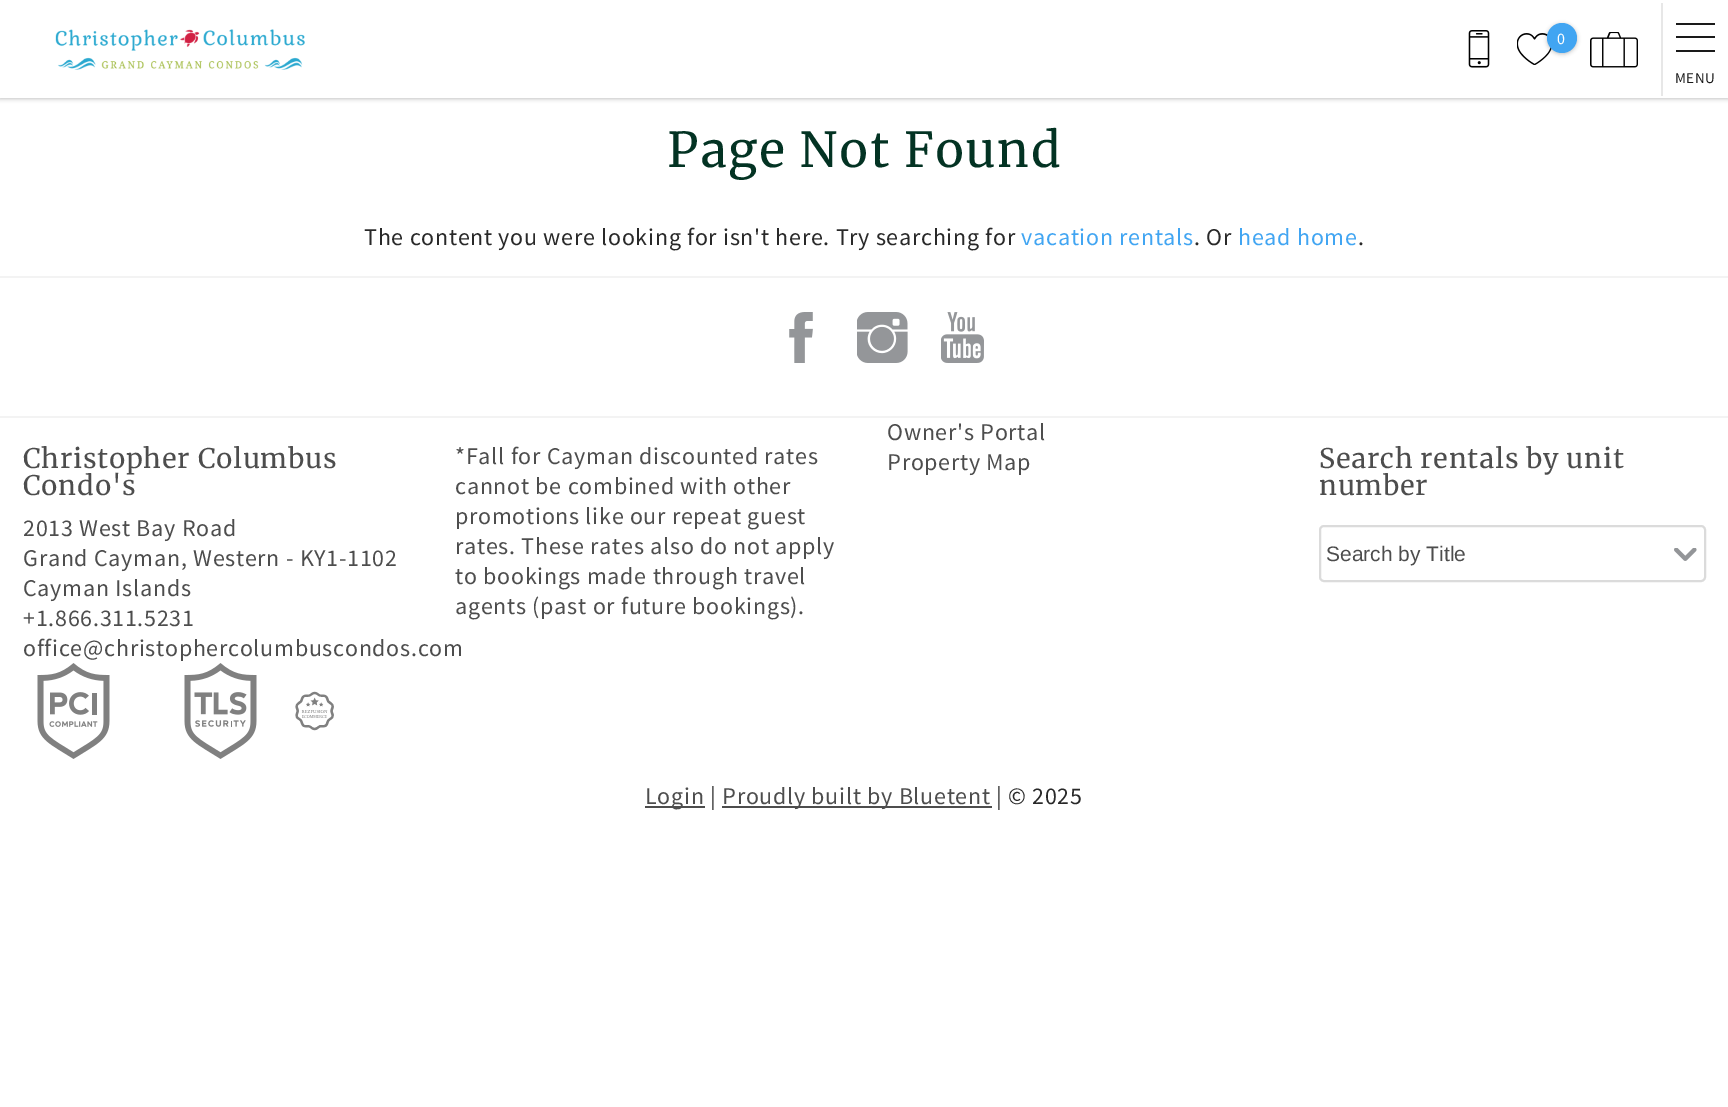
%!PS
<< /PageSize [1728 1107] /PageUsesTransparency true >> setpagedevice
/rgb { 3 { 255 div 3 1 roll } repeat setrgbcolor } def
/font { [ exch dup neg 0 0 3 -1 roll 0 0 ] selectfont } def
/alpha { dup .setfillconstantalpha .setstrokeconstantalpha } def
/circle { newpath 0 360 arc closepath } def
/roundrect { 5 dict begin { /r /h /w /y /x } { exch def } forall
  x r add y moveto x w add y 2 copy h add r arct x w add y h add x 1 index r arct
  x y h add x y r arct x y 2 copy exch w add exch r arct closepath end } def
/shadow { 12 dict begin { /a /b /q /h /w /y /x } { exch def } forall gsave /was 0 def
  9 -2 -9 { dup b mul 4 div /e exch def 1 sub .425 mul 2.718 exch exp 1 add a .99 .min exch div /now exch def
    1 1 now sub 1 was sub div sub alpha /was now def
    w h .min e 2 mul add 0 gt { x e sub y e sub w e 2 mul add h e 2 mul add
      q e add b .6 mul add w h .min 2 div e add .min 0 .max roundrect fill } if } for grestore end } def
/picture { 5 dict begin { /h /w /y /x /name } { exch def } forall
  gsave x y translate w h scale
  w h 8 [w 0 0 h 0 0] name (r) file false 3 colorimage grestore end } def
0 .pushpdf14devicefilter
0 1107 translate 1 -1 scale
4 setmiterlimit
255 255 255 rgb
0 0 1728 1107 rectfill
17 17 17 rgb
0 2 1728 97 0 2 0.25 shadow
255 255 255 rgb
0 0 1728 98 rectfill
(img/1.rgb) 55 29 250 41 picture
(img/2.rgb) 1468 30 22 38 picture
(img/3.rgb) 1517 33 35 32 picture
17 17 17 rgb
1547 24 30 30 15 2 0.25 shadow
65 165 242 rgb
1562 38 15 circle fill
(img/4.rgb) 1590 32 48 36 picture
[
  [1661 3 2 93 231 231 231]
  [1676 36 39 2 26 26 26]
  [1676 23 39 2 26 26 26]
  [1676 50 39 2 26 26 26]
  [0 276 1728 2 243 243 243]
  [0 416 1728 2 243 243 243]
] { aload pop rgb rectfill } forall
(img/5.rgb) 789 312 24 51 picture
(img/6.rgb) 857 312 51 51 picture
(img/7.rgb) 941 312 43 51 picture
(img/8.rgb) 1674 548 23 13 picture
219 219 219 rgb
2 setlinewidth
1320 526 385 55 4 roundrect stroke
(img/9.rgb) 37 663 73 96 picture
(img/10.rgb) 184 663 73 96 picture
(img/11.rgb) 295 691 39 40 picture
77 77 77 rgb
645 806 60 2 rectfill
722 806 270 2 rectfill
/SourceSansPro-Regular 16 font
255 255 255 rgb
1557 44 moveto 0.72 0 (0) ashow
/SourceSansPro-Regular 15 font
26 26 26 rgb
1675 83 moveto 0.5 0 (MENU) ashow
/Merriweather-Regular 48 font
3 51 35 rgb
667 167 moveto 1.5 0 (Page Not Found) ashow
/SourceSansPro-Regular 24 font
41 41 41 rgb
364 245 moveto 0.72 0 (The content you were looking for isn't here. Try searching for) ashow
65 165 242 rgb
1021 245 moveto 0.72 0 (vacation rentals) ashow
41 41 41 rgb
1194 245 moveto 0.72 0 (. Or) ashow
65 165 242 rgb
1238 245 moveto 0.72 0 (head home) ashow
41 41 41 rgb
1358 245 moveto 0.72 0 (.) ashow
/Merriweather-Regular 27 font
77 77 77 rgb
23 468 moveto 0.72 0 (Christopher Columbus) ashow
23 495 moveto 0.72 0 (Condo's) ashow
/SourceSansPro-Regular 24 font
23 536 moveto 0.72 0 (2013 West Bay Road) ashow
23 566 moveto 0.72 0 (Grand Cayman, Western - KY1-1102) ashow
23 596 moveto 0.72 0 (Cayman Islands) ashow
23 626 moveto 0.72 0 (+1.866.311.5231) ashow
23 656 moveto 0.72 0 (office@christophercolumbuscondos.com) ashow
455 464 moveto 0.72 0 (*Fall for Cayman discounted rates) ashow
455 494 moveto 0.72 0 (cannot be combined with other) ashow
455 524 moveto 0.72 0 (promotions like our repeat guest) ashow
455 554 moveto 0.72 0 (rates. These rates also do not apply) ashow
455 584 moveto 0.72 0 (to bookings made through travel) ashow
455 614 moveto 0.72 0 (agents \(past or future bookings\).) ashow
887 440 moveto 0.72 0 (Owner's Portal) ashow
887 470 moveto 0.72 0 (Property Map) ashow
/Merriweather-Regular 27 font
1319 468 moveto 0.72 0 (Search rentals by unit) ashow
1319 495 moveto 0.72 0 (number) ashow
/LiberationSans-Regular 21 font
1326 561 moveto (Search by Title) show
/SourceSansPro-Regular 24 font
645 804 moveto 0.72 0 (Login) ashow
41 41 41 rgb
710 804 moveto 0.72 0 (|) ashow
77 77 77 rgb
722 804 moveto 0.72 0 (Proudly built by Bluetent) ashow
41 41 41 rgb
996 804 moveto 0.72 0 (| © 2025) ashow
.poppdf14devicefilter showpage
